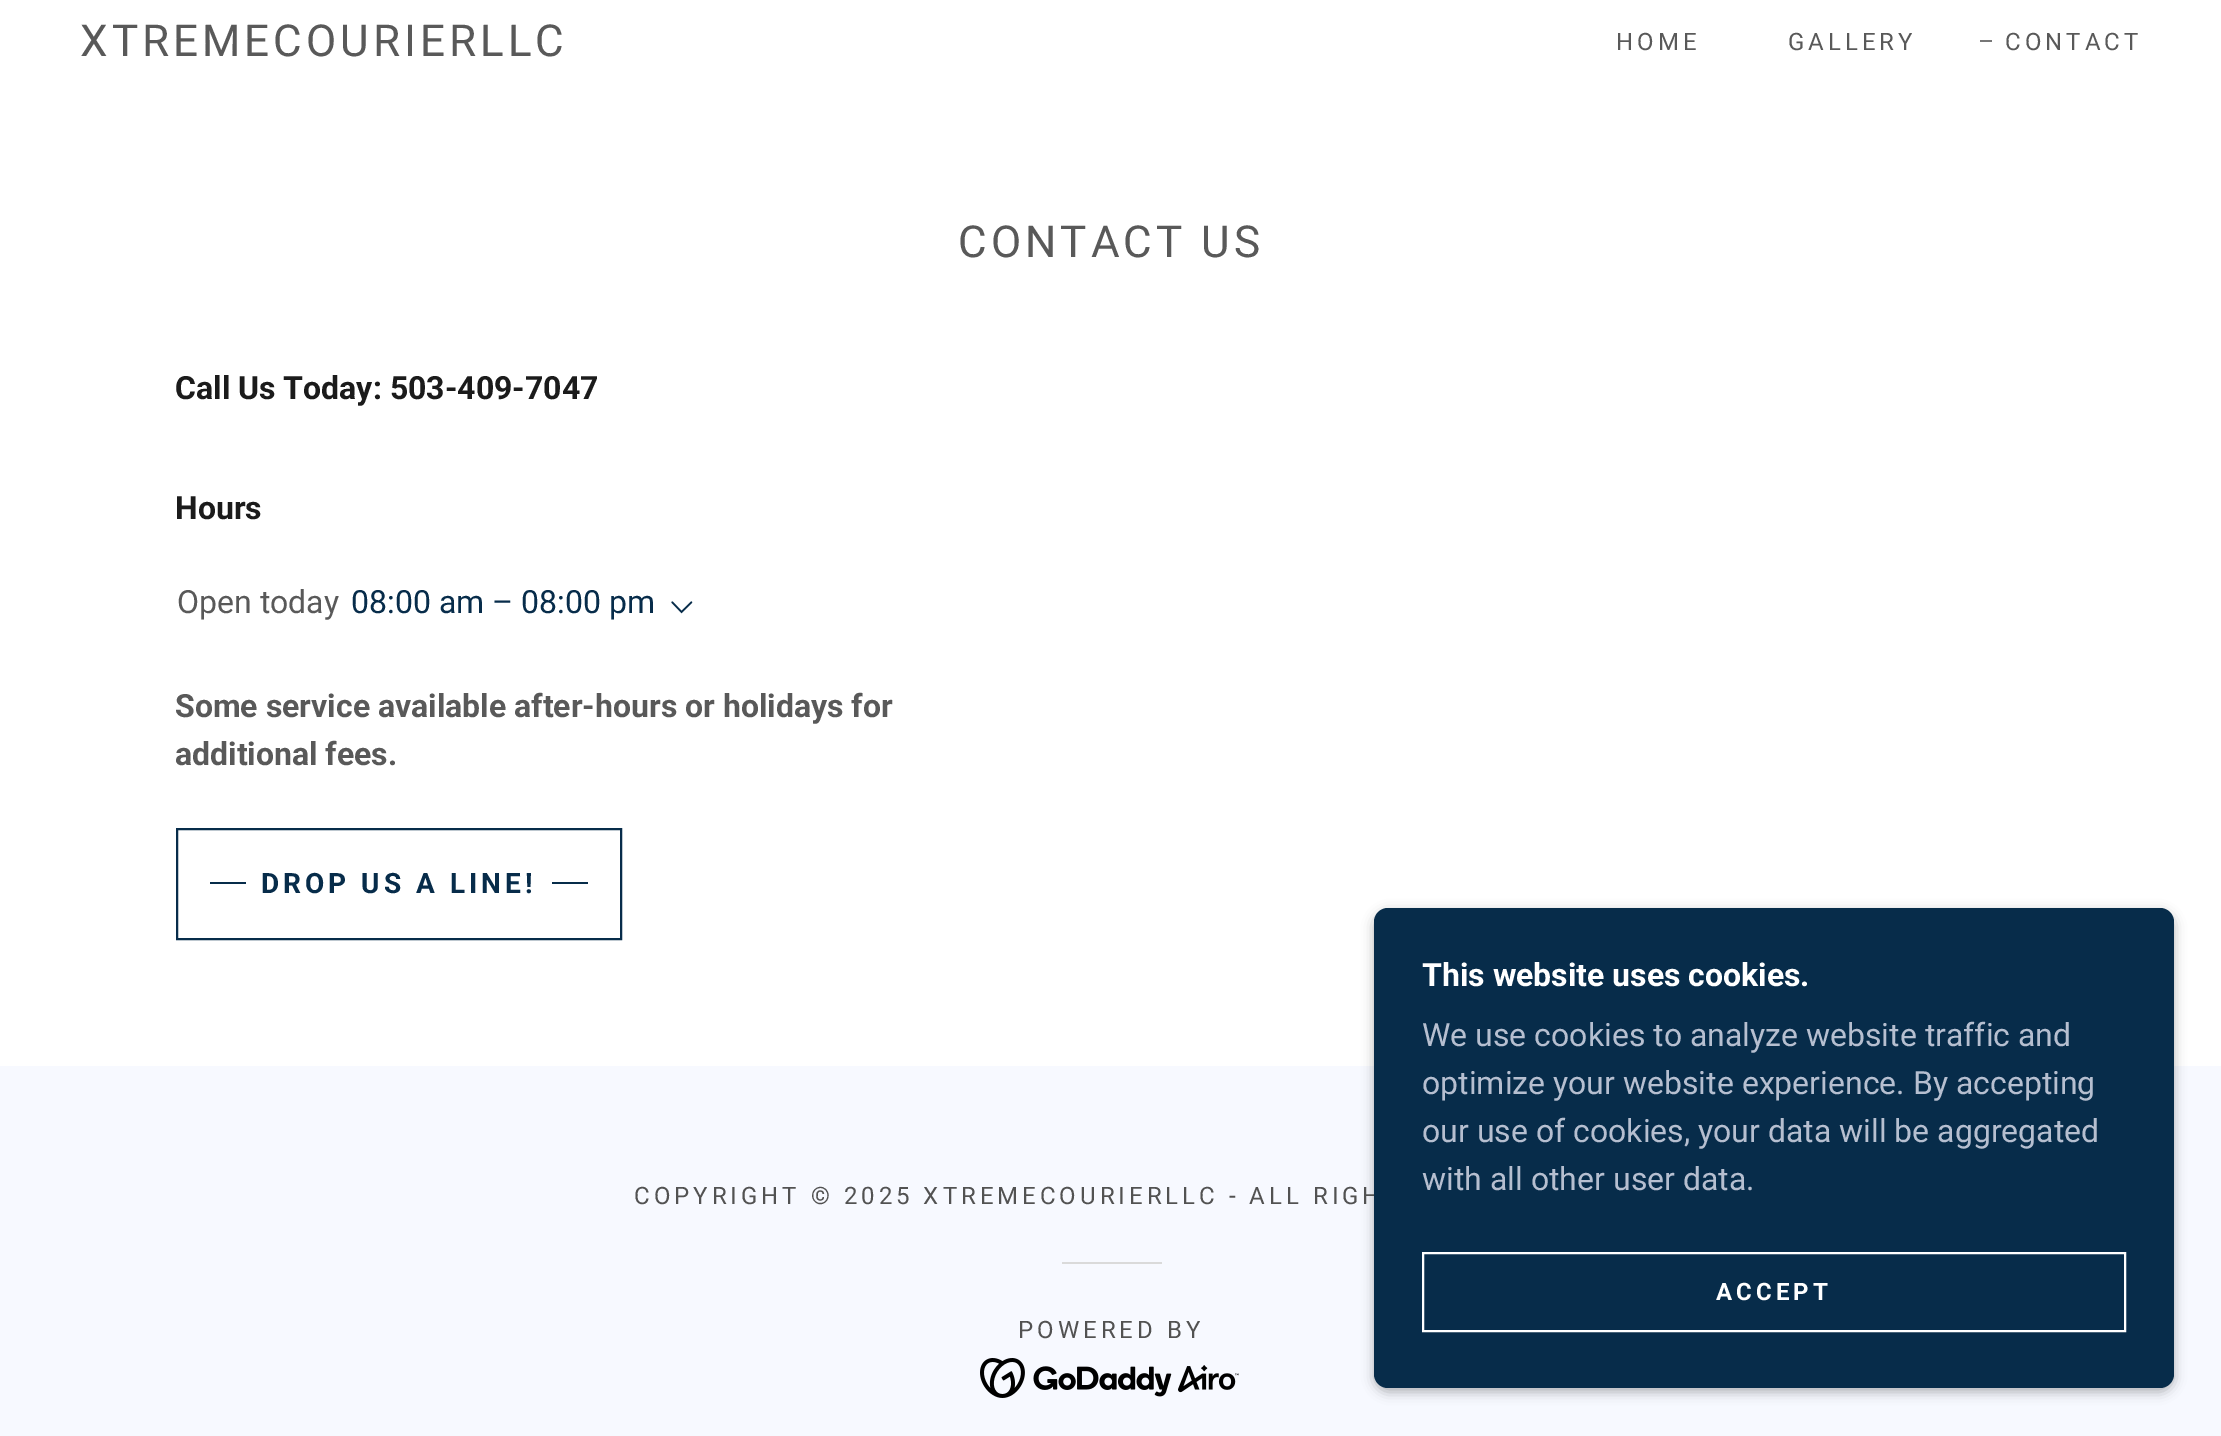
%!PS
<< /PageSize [2221 1436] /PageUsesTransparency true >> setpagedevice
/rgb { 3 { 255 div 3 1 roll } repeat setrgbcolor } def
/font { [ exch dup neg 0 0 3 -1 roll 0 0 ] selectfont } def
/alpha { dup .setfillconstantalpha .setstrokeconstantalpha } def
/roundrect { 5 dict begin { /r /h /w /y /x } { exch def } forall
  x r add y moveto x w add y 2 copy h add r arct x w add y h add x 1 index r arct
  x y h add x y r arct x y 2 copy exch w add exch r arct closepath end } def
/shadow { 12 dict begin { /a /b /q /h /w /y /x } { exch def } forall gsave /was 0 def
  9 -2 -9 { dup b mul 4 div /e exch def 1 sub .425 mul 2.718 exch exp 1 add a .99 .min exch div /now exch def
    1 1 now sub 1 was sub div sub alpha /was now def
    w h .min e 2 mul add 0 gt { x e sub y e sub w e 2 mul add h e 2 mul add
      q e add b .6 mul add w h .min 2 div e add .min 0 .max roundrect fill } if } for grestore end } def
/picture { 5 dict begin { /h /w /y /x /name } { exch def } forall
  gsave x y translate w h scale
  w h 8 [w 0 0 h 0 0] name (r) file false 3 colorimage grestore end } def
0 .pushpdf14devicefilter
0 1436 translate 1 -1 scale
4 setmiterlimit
247 249 255 rgb
0 0 2221 1436 rectfill
255 255 255 rgb
0 0 2221 1066 rectfill
119 119 119 rgb
1980 40 12 2 rectfill
(img/1.rgb) 671 601 22 13 picture
7 44 74 rgb
2 setlinewidth
177 829 444 110 rectstroke
[
  [210 882 36 2 7 44 74]
  [552 882 36 2 7 44 74]
  [1062 1262 100 2 218 218 218]
] { aload pop rgb rectfill } forall
(img/2.rgb) 980 1358 259 40 picture
0 0 0 rgb
1374 912 800 480 14 6 0.3 shadow
/Roboto-Regular 44 font
89 89 89 rgb
80 56 moveto 4 0 (XTREMECOURIERLLC) ashow
/Roboto-Regular 24 font
1616 50 moveto 4 0 (HOME) ashow
1788 50 moveto 4 0 (GALLERY) ashow
2005 50 moveto 4 0 (CONTACT) ashow
/Roboto-Regular 44 font
958 257 moveto 4 0 (CONTACT US) ashow
/Roboto-Bold 32 font
27 27 27 rgb
175 399 moveto (Call Us Today: 503-409-7047) show
175 519 moveto (Hours) show
/Roboto-Regular 32 font
89 89 89 rgb
177 613 moveto (Open today) show
7 44 74 rgb
351 613 moveto (08:00 am – 08:00 pm) show
/Roboto-Bold 32 font
89 89 89 rgb
175 717 moveto (Some service available after-hours or holidays for) show
175 765 moveto (additional fees.) show
/Roboto-Bold 28 font
7 44 74 rgb
261 893 moveto 4 0 (DROP US A LINE!) ashow
/Roboto-Regular 24 font
82 82 82 rgb
634 1204 moveto 4 0 (COPYRIGHT © 2025 XTREMECOURIERLLC - ALL RIGH) ashow
1018 1338 moveto 4 0 (POWERED BY) ashow
7 44 74 rgb
1374 908 800 480 14 roundrect fill
/Roboto-Bold 32 font
255 255 255 rgb
1422 986 moveto (This website uses cookies.) show
/Roboto-Regular 32 font
182 191 208 rgb
[
  [(We use cookies to analyze website traffic and) 1422 1046]
  [(optimize your website experience. By accepting) 1422 1094]
  [(our use of cookies, your data will be aggregated) 1422 1142]
  [(with all other user data.) 1422 1190]
] { aload pop moveto show } forall
255 255 255 rgb
1423 1253 702 78 rectstroke
/Roboto-Bold 24 font
1716 1300 moveto 4 0 (ACCEPT) ashow
.poppdf14devicefilter showpage
